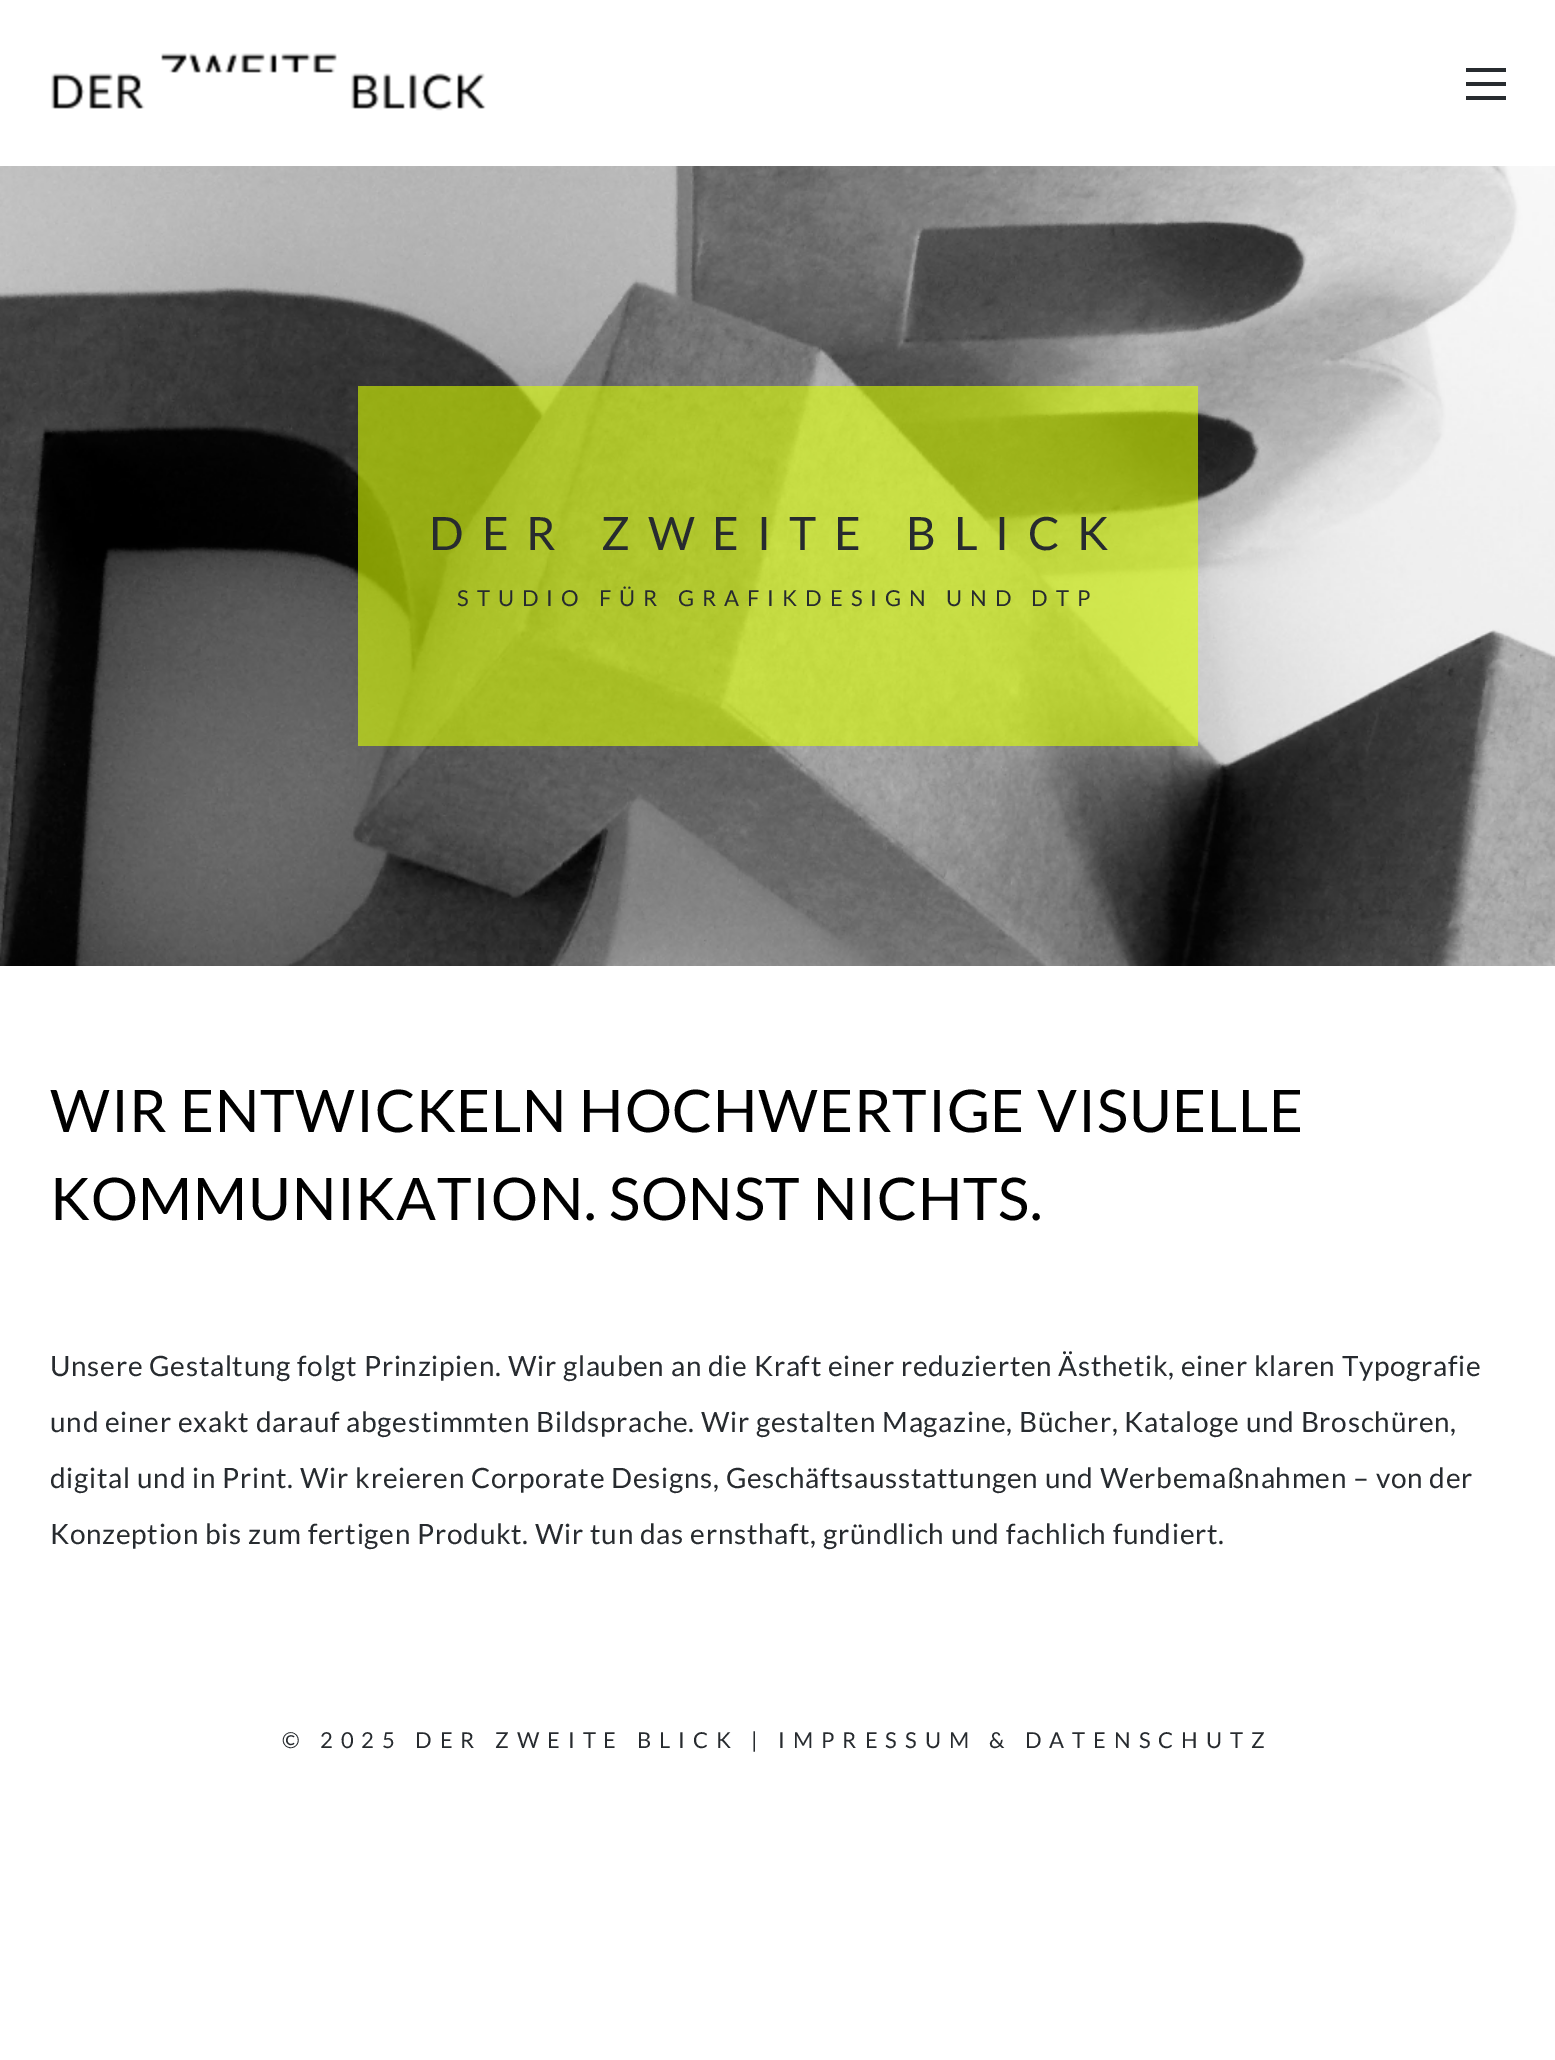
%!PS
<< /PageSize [1555 2060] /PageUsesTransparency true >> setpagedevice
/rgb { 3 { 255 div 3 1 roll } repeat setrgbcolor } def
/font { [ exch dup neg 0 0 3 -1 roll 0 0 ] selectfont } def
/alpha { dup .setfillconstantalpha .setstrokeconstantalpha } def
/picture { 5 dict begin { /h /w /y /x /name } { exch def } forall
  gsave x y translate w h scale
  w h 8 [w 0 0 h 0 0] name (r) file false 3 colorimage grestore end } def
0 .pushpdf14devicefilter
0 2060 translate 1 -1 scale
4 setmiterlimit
255 255 255 rgb
0 0 1555 2060 rectfill
(img/1.rgb) 51 53 435 58 picture
[
  [1466 82 40 4 39 43 47]
  [1466 68 40 4 39 43 47]
  [1466 96 40 4 39 43 47]
] { aload pop rgb rectfill } forall
(img/2.rgb) 0 166 1555 800 picture
0.6 alpha
218 255 0 rgb
358 386 840 360 rectfill
/Lato-Regular 46 font
1 alpha
39 43 47 rgb
429 550 moveto 18 0 (DER ZWEITE BLICK) ashow
/Lato-Regular 22 font
457 606 moveto 8 0 (STUDIO FÜR GRAFIKDESIGN UND DTP) ashow
/Lato-Regular 58.8 font
0 0 0 rgb
50 1132 moveto 0.7 0 (WIR ENTWICKELN HOCHWERTIGE VISUELLE) ashow
50 1220 moveto 0.7 0 (KOMMUNIKATION. SONST NICHTS.) ashow
/Lato-Regular 28 font
39 43 47 rgb
50 1376 moveto 0.7 0 (Unsere Gestaltung folgt Prinzipien. Wir glauben an die Kraft einer reduzierten Ästhetik, einer klaren Typografie) ashow
50 1432 moveto 0.7 0 (und einer exakt darauf abgestimmten Bildsprache. Wir gestalten Magazine, Bücher, Kataloge und Broschüren,) ashow
50 1488 moveto 0.7 0 (digital und in Print. Wir kreieren Corporate Designs, Geschäftsausstattungen und Werbemaßnahmen – von der) ashow
50 1544 moveto 0.7 0 (Konzeption bis zum fertigen Produkt. Wir tun das ernsthaft, gründlich und fachlich fundiert.) ashow
/Lato-Regular 22 font
282 1748 moveto 8 0 (© 2025 DER ZWEITE BLICK | IMPRESSUM & DATENSCHUTZ) ashow
.poppdf14devicefilter showpage
